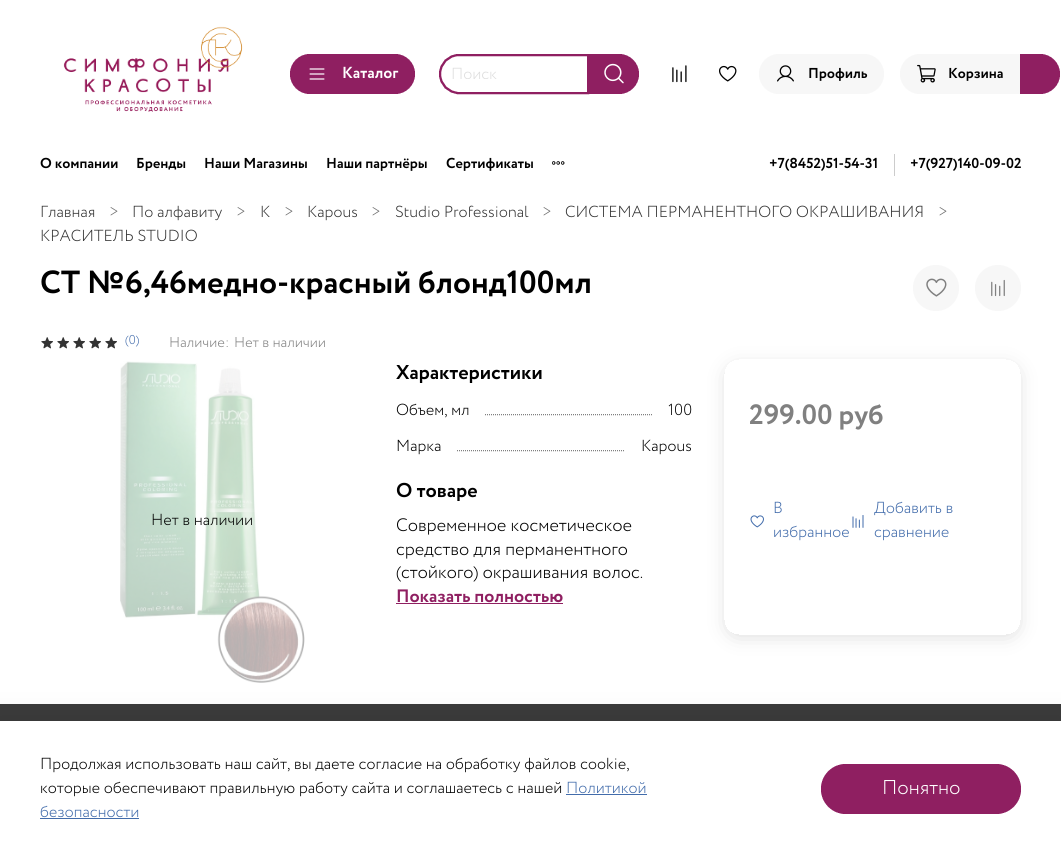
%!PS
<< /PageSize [1061 846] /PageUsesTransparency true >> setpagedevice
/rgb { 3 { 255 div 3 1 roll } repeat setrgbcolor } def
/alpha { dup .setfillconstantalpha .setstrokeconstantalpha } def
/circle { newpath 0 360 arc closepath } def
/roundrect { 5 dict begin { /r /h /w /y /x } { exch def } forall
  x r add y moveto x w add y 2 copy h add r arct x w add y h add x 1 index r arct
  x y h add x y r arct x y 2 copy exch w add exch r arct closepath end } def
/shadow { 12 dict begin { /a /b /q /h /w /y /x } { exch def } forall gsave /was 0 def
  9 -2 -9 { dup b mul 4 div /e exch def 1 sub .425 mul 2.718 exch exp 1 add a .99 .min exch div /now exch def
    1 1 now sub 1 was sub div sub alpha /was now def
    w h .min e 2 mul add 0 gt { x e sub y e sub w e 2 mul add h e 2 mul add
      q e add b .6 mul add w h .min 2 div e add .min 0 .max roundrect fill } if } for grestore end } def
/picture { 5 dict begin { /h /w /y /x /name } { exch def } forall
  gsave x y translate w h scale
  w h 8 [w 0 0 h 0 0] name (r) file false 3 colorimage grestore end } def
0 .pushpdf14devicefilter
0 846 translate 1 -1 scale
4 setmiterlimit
255 255 255 rgb
0 0 1061 846 rectfill
(img/1.rgb) 63 26 180 86 picture
143 31 97 rgb
290 54 125 40 20 roundrect fill
(img/2.rgb) 309 68 16 12 picture
(img/3.rgb) 343 66 56 13 picture
2 setlinewidth
459 55 moveto 588 55 lineto 588 93 lineto 459 93 lineto 448.5 93 440 84.5 440 74 curveto 440 63.5 448.5 55 459 55 curveto closepath stroke
(img/4.rgb) 452 67 45 12 picture
589 54 moveto 619 54 lineto 630 54 639 63 639 74 curveto 639 85 630 94 619 94 curveto 589 94 lineto closepath fill
(img/5.rgb) 604 63 20 21 picture
(img/6.rgb) 672 65 15 18 picture
(img/7.rgb) 719 65 18 17 picture
247 247 247 rgb
759 54 125 40 20 roundrect fill
(img/8.rgb) 777 65 17 17 picture
(img/9.rgb) 809 67 59 14 picture
900 54 160 40 20 roundrect fill
(img/10.rgb) 917 64 19 19 picture
(img/11.rgb) 949 67 54 14 picture
143 31 97 rgb
1020 54 moveto 1040 54 lineto 1051 54 1060 63 1060 74 curveto 1060 85 1051 94 1040 94 curveto 1020 94 lineto closepath fill
(img/12.rgb) 40 157 78 12 picture
(img/13.rgb) 137 157 49 14 picture
(img/14.rgb) 205 157 102 12 picture
(img/15.rgb) 327 157 100 14 picture
(img/16.rgb) 446 157 87 14 picture
(img/17.rgb) 552 161 13 4 picture
204 204 204 rgb
894 154 1 22 rectfill
(img/18.rgb) 769 157 108 14 picture
(img/19.rgb) 910 157 111 14 picture
(img/20.rgb) 41 205 54 13 picture
(img/21.rgb) 110 207 8 9 picture
(img/22.rgb) 133 205 89 16 picture
(img/21.rgb) 237 207 8 9 picture
(img/23.rgb) 261 205 9 12 picture
(img/21.rgb) 285 207 8 9 picture
(img/24.rgb) 308 205 49 16 picture
(img/21.rgb) 372 207 8 9 picture
(img/25.rgb) 396 205 133 13 picture
(img/21.rgb) 543 207 8 9 picture
(img/26.rgb) 565 205 358 13 picture
(img/21.rgb) 939 207 8 9 picture
(img/27.rgb) 41 229 156 13 picture
(img/28.rgb) 41 270 549 30 picture
247 247 247 rgb
936 288 23 circle fill
(img/29.rgb) 926 278 21 19 picture
998 288 23 circle fill
(img/30.rgb) 991 279 14 18 picture
(img/31.rgb) 41 337 12 12 picture
(img/31.rgb) 57 337 12 12 picture
(img/31.rgb) 73 337 12 12 picture
(img/31.rgb) 89 337 12 12 picture
(img/31.rgb) 105 337 12 12 picture
(img/32.rgb) 125 334 14 13 picture
(img/33.rgb) 170 337 58 11 picture
(img/34.rgb) 235 337 90 11 picture
gsave
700 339 moveto 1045 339 lineto 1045 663 lineto 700 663 lineto closepath 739 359 moveto 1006 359 lineto 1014.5 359 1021 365.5 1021 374 curveto 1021 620 lineto 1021 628.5 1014.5 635 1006 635 curveto 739 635 lineto 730.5 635 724 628.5 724 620 curveto 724 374 lineto 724 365.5 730.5 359 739 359 curveto closepath eoclip newpath
0 0 0 rgb
724 363 297 276 15 7.5 0.1 shadow
grestore
(img/35.rgb) 750 404 133 26 picture
(img/36.rgb) 750 515 14 13 picture
(img/37.rgb) 774 501 8 13 picture
(img/38.rgb) 774 525 75 16 picture
(img/39.rgb) 852 515 12 13 picture
(img/40.rgb) 874 501 79 15 picture
(img/41.rgb) 874 529 75 12 picture
(img/42.rgb) 120 361 185 322 picture
(img/43.rgb) 152 513 100 13 picture
(img/44.rgb) 396 365 146 18 picture
(img/45.rgb) 396 403 73 15 picture
128 128 128 rgb
1 setlinewidth
[1 1] 0 setdash
485 414.5 moveto 652 414.5 lineto stroke
(img/46.rgb) 668 403 24 13 picture
(img/47.rgb) 397 439 44 16 picture
457 450.5 moveto 625 450.5 lineto stroke
(img/48.rgb) 642 439 49 16 picture
(img/49.rgb) 396 482 81 19 picture
(img/50.rgb) 397 518 235 17 picture
(img/51.rgb) 396 546 231 13 picture
(img/52.rgb) 396 565 247 17 picture
(img/53.rgb) 397 589 166 14 picture
143 31 97 rgb
396 603 167 1 rectfill
59 59 59 rgb
0 704 1061 17 rectfill
0 0 0 rgb
-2 718 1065 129 0 11.5 0.09 shadow
255 255 255 rgb
0 721 1061 125 rectfill
(img/54.rgb) 41 757 588 16 picture
(img/55.rgb) 41 781 521 16 picture
(img/56.rgb) 567 781 79 13 picture
66 108 171 rgb
566 794 81 1 rectfill
(img/57.rgb) 40 805 99 13 picture
40 818 99 1 rectfill
143 31 97 rgb
821 764 200 50 25 roundrect fill
(img/58.rgb) 884 780 76 15 picture
.poppdf14devicefilter showpage
